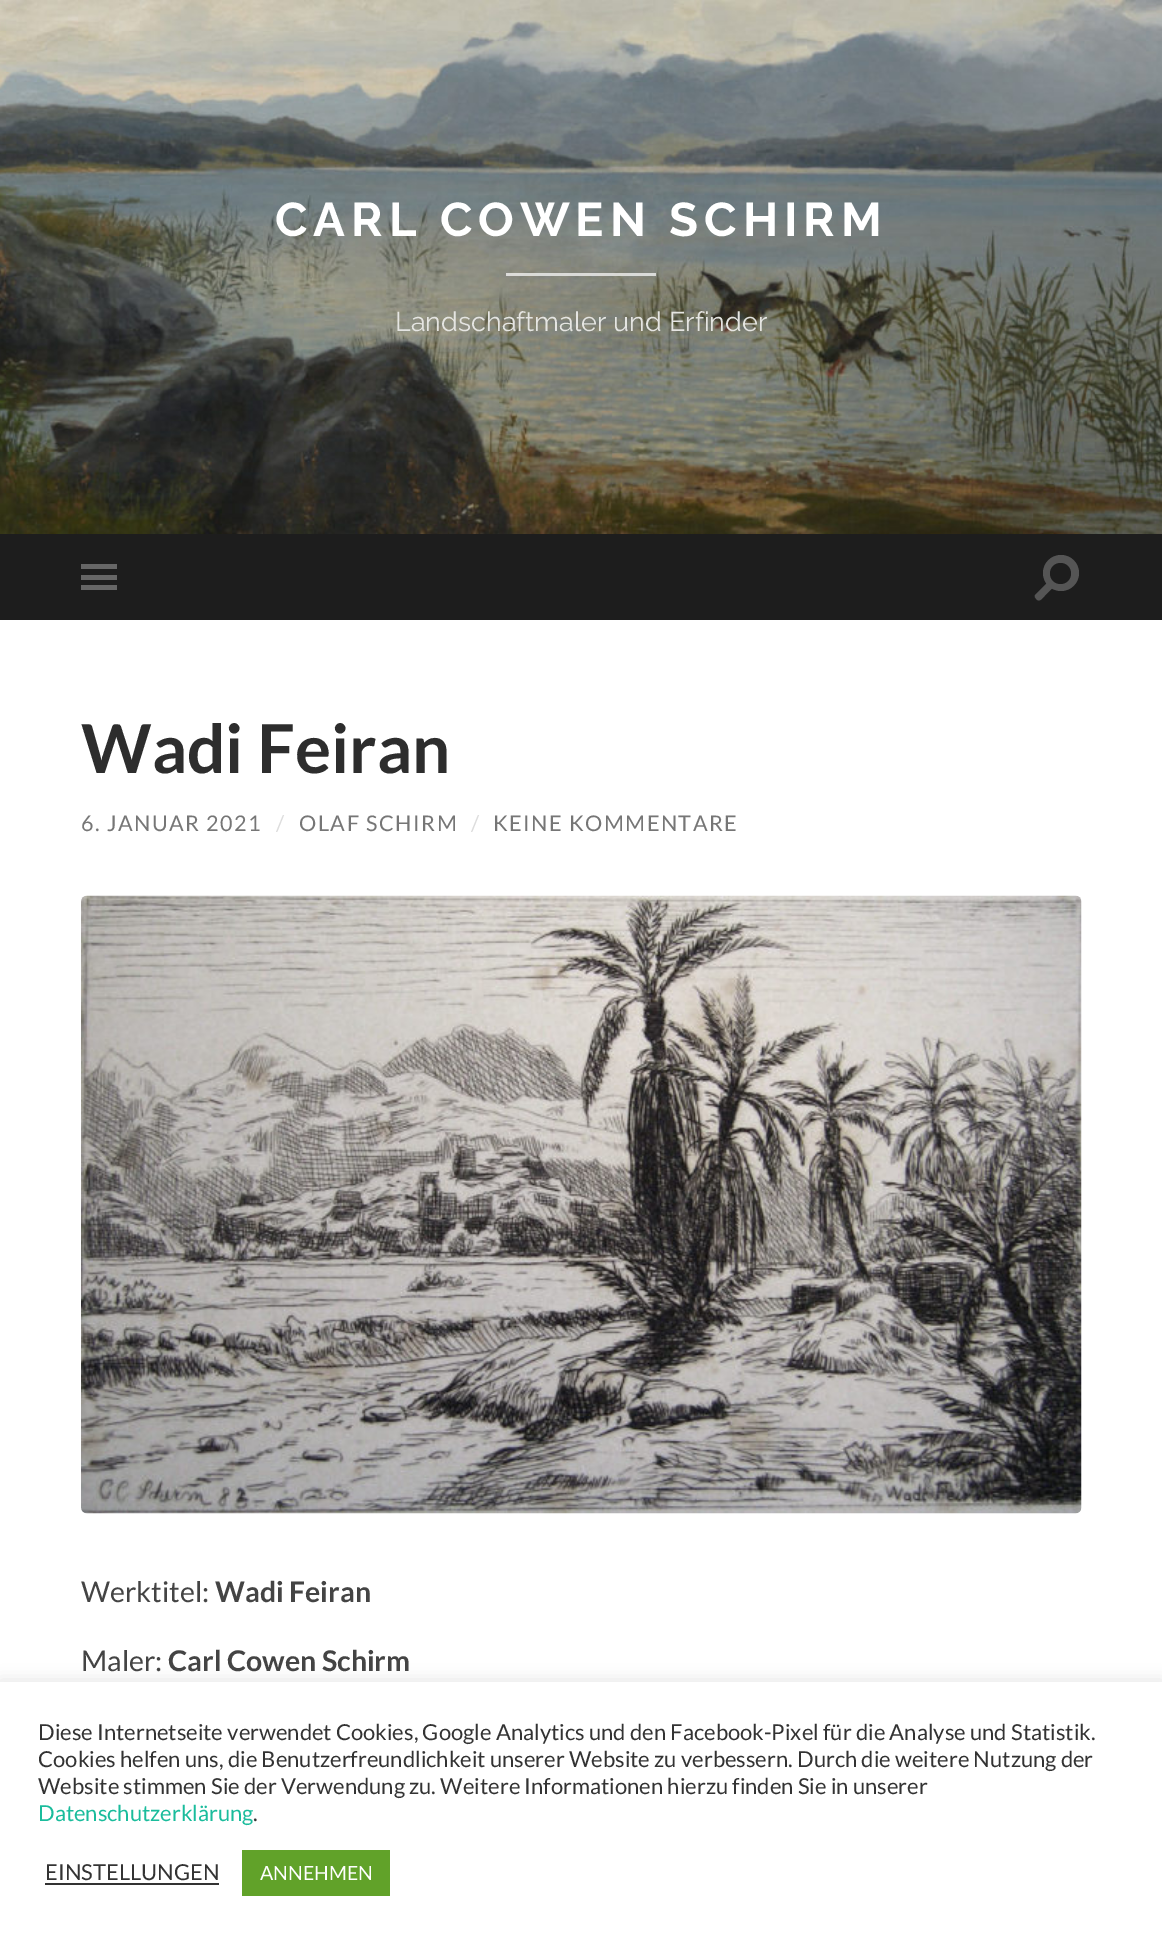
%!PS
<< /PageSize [1162 1940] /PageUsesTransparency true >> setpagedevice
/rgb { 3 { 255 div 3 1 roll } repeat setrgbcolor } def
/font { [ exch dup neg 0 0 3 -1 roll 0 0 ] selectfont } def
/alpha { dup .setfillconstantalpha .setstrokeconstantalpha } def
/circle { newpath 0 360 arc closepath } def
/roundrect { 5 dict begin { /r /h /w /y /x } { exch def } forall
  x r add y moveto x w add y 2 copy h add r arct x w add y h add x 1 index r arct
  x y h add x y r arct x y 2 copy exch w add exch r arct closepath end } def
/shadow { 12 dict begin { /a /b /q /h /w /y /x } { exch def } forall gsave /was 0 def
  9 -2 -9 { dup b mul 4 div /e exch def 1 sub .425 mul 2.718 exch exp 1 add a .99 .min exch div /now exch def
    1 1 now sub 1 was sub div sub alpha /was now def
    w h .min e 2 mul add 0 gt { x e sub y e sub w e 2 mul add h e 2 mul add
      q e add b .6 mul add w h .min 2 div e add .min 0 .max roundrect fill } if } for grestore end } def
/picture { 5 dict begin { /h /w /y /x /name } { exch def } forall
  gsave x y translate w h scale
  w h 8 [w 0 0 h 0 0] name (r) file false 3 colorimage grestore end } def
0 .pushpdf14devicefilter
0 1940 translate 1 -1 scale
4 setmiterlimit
255 255 255 rgb
0 0 1162 1940 rectfill
(img/1.rgb) 0 0 1162 534 picture
0.7 alpha
[
  [506 273 150 3 255 255 255]
] { aload pop rgb rectfill } forall
1 alpha
[
  [0 534 1162 86 29 29 29]
  [81 564 36 5 102 102 102]
  [81 575 36 5 102 102 102]
  [81 585 36 5 102 102 102]
] { aload pop rgb rectfill } forall
85 85 85 rgb
1061 573 18 circle fill
29 29 29 rgb
1060.5 573.5 10.5 circle fill
85 85 85 rgb
1035.5 594.5 moveto 1048.5 581.5 lineto 1053.5 587 lineto 1045 595.5 lineto 1042 598.5 1039 603.5 1035.5 598 curveto 1034.5 597 1034.5 595.5 1035.5 594.5 curveto closepath fill
(img/2.rgb) 81 895 1001 619 picture
172 171 171 rgb
0 1680 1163 260 0 7.5 0.3 shadow
[
  [0 1682 1162 258 255 255 255]
  [45 1883 174 2 51 51 51]
  [242 1850 148 46 97 162 41]
] { aload pop rgb rectfill } forall
/Raleway-Bold 47.25 font
255 255 255 rgb
275 236 moveto 6 0 (CARL COWEN SCHIRM) ashow
/Raleway-Regular 27 font
229 229 226 rgb
395 331 moveto (Landschaftmaler und Erfinder) show
/Lato-Bold 67.5 font
45 45 45 rgb
81 773 moveto (Wadi Feiran) show
/Lato-Regular 21.6 font
118 118 118 rgb
81 831 moveto 1.5 0 (6. JANUAR 2021) ashow
221 221 221 rgb
276 831 moveto 1.5 0 (/) ashow
118 118 118 rgb
299 831 moveto 1.5 0 (OLAF SCHIRM) ashow
221 221 221 rgb
471 831 moveto 1.5 0 (/) ashow
118 118 118 rgb
493 831 moveto 1.5 0 (KEINE KOMMENTARE) ashow
/Lato-Regular 28.5 font
68 68 68 rgb
81 1602 moveto (Werktitel:) show
/Lato-Bold 28.5 font
215 1602 moveto (Wadi Feiran) show
/Lato-Regular 28.5 font
81 1671 moveto (Maler:) show
/Lato-Bold 28.5 font
168 1671 moveto (Carl Cowen Schirm) show
/Lato-Regular 22 font
51 51 51 rgb
[
  [(Diese Internetseite verwendet Cookies, Google Analytics und den Facebook-Pixel für die Analyse und Statistik.) 38 1740]
  [(Cookies helfen uns, die Benutzerfreundlichkeit unserer Website zu verbessern. Durch die weitere Nutzung der) 38 1767]
  [(Website stimmen Sie der Verwendung zu. Weitere Informationen hierzu finden Sie in unserer) 38 1794]
] { aload pop moveto show } forall
26 188 156 rgb
38 1821 moveto (Datenschutzerklärung) show
51 51 51 rgb
253 1821 moveto (.) show
45 1880 moveto (EINSTELLUNGEN) show
/Lato-Regular 19.5 font
255 255 255 rgb
260 1880 moveto (ANNEHMEN) show
.poppdf14devicefilter showpage
